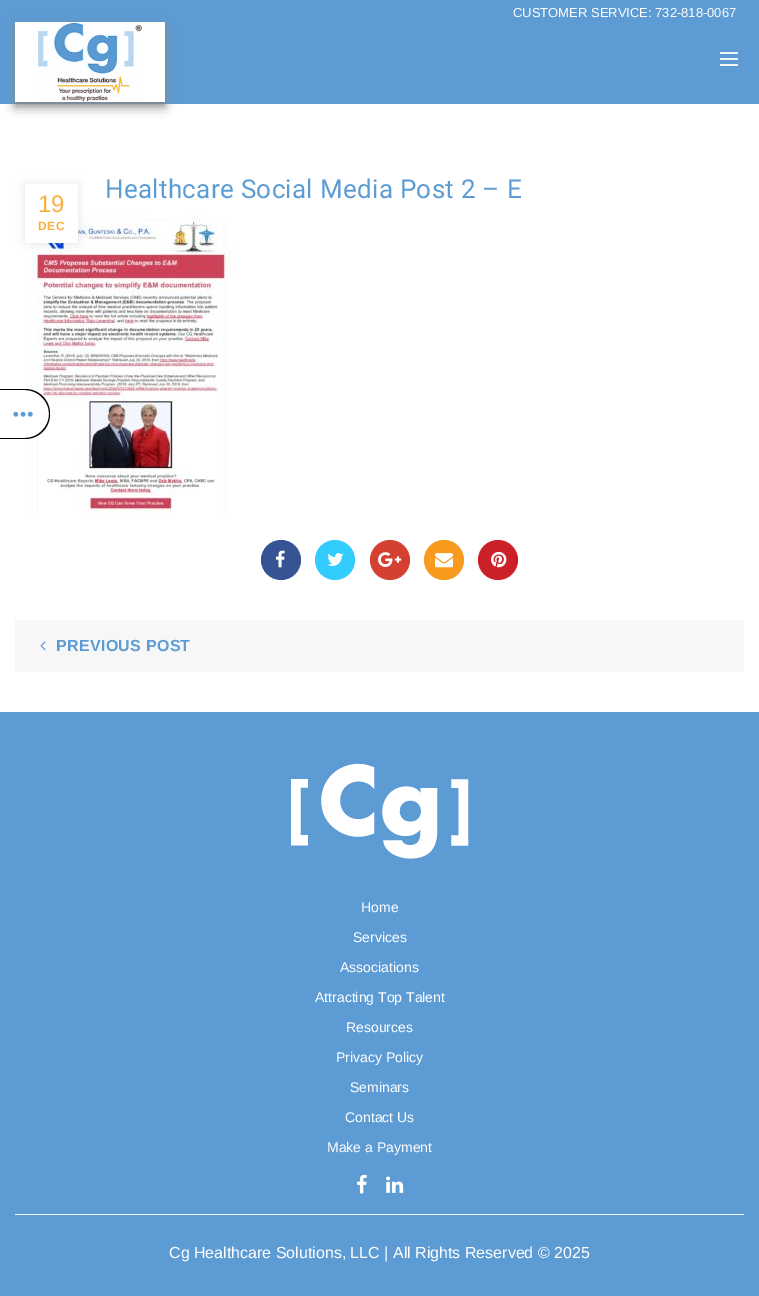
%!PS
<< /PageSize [759 1296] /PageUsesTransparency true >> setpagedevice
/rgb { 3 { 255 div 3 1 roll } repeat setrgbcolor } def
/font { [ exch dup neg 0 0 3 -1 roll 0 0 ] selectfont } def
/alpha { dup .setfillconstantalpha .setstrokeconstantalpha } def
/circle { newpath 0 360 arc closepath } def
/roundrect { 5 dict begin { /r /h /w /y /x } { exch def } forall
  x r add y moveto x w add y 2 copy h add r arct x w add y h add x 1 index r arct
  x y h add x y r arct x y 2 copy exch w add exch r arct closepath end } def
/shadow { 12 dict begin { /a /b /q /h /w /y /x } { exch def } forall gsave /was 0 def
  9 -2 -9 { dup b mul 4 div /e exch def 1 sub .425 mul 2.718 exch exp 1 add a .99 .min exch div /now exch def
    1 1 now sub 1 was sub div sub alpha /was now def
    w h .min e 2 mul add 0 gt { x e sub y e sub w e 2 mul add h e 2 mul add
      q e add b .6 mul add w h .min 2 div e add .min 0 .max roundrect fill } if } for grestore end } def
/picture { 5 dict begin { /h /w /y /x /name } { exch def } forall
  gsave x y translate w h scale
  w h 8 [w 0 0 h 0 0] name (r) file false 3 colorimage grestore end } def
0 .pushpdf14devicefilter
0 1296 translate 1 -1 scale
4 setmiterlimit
255 255 255 rgb
0 0 759 1296 rectfill
(img/3.rgb) 31 215 205 300 picture
0 390 moveto 25 390 lineto 38.5 390 49 400.5 49 414 curveto 49 427.5 38.5 438 25 438 curveto 0 438 lineto closepath fill
0 0 0 rgb
0 389 moveto 25 389 lineto 39 389 50 400 50 414 curveto 50 428 39 439 25 439 curveto 0 439 lineto closepath 0 390 moveto 25 390 lineto 38 390 49 401 49 414 curveto 49 427 38 438 25 438 curveto 0 438 lineto closepath eofill
(img/1.rgb) 13 411 20 6 picture
92 155 211 rgb
0 0 759 104 rectfill
136 136 136 rgb
15 27 150 80 0 5 1 shadow
255 255 255 rgb
15 22 150 80 rectfill
(img/2.rgb) 38 22 104 80 picture
[
  [720 58 18 2 239 245 251]
  [720 52 18 2 239 245 251]
  [720 64 18 2 239 245 251]
] { aload pop rgb rectfill } forall
0 0 0 rgb
25 184 53 59 0 4.5 0.1 shadow
255 255 255 rgb
25 184 53 59 rectfill
54 84 147 rgb
281 560 20 circle fill
(img/4.rgb) 275 550 10 18 picture
51 204 255 rgb
335 560 20 circle fill
(img/5.rgb) 327 553 17 13 picture
212 65 50 rgb
390 560 20 circle fill
(img/6.rgb) 378 552 24 15 picture
248 154 30 rgb
444 560 20 circle fill
(img/7.rgb) 435 553 18 15 picture
203 32 39 rgb
498 560 20 circle fill
(img/8.rgb) 491 551 16 17 picture
247 247 247 rgb
15 620 729 52 rectfill
(img/9.rgb) 40 641 6 10 picture
92 155 211 rgb
0 712 759 584 rectfill
(img/10.rgb) 291 763 178 96 picture
(img/11.rgb) 357 1174 10 20 picture
(img/12.rgb) 386 1176 18 17 picture
239 245 251 rgb
15 1214 729 1 rectfill
/LiberationSans-Regular 13 font
255 255 255 rgb
513 17 moveto (CUSTOMER SERVICE: 732-818-0067) show
/Roboto-Regular 26 font
92 155 211 rgb
105 198 moveto 0.3 0 (Healthcare Social Media Post 2 – E) ashow
/LiberationSans-Regular 24 font
250 175 64 rgb
38 212 moveto (19) show
/LiberationSans-Bold 12 font
38 230 moveto 0.5 0 (DEC) ashow
/LiberationSans-Bold 16 font
92 155 211 rgb
56 651 moveto 0.3 0 (PREVIOUS POST) ashow
/LiberationSans-Regular 14 font
255 255 255 rgb
[
  [(Home) 361 912]
  [(Services) 353 942]
  [(Associations) 340 972]
  [(Attracting Top Talent) 315 1002]
  [(Resources) 346 1032]
  [(Privacy Policy) 336 1062]
  [(Seminars) 350 1092]
  [(Contact Us) 345 1122]
  [(Make a Payment) 327 1152]
] { aload pop moveto show } forall
/LiberationSans-Regular 16 font
169 1258 moveto (Cg Healthcare Solutions, LLC | All Rights Reserved © 2025) show
.poppdf14devicefilter showpage
